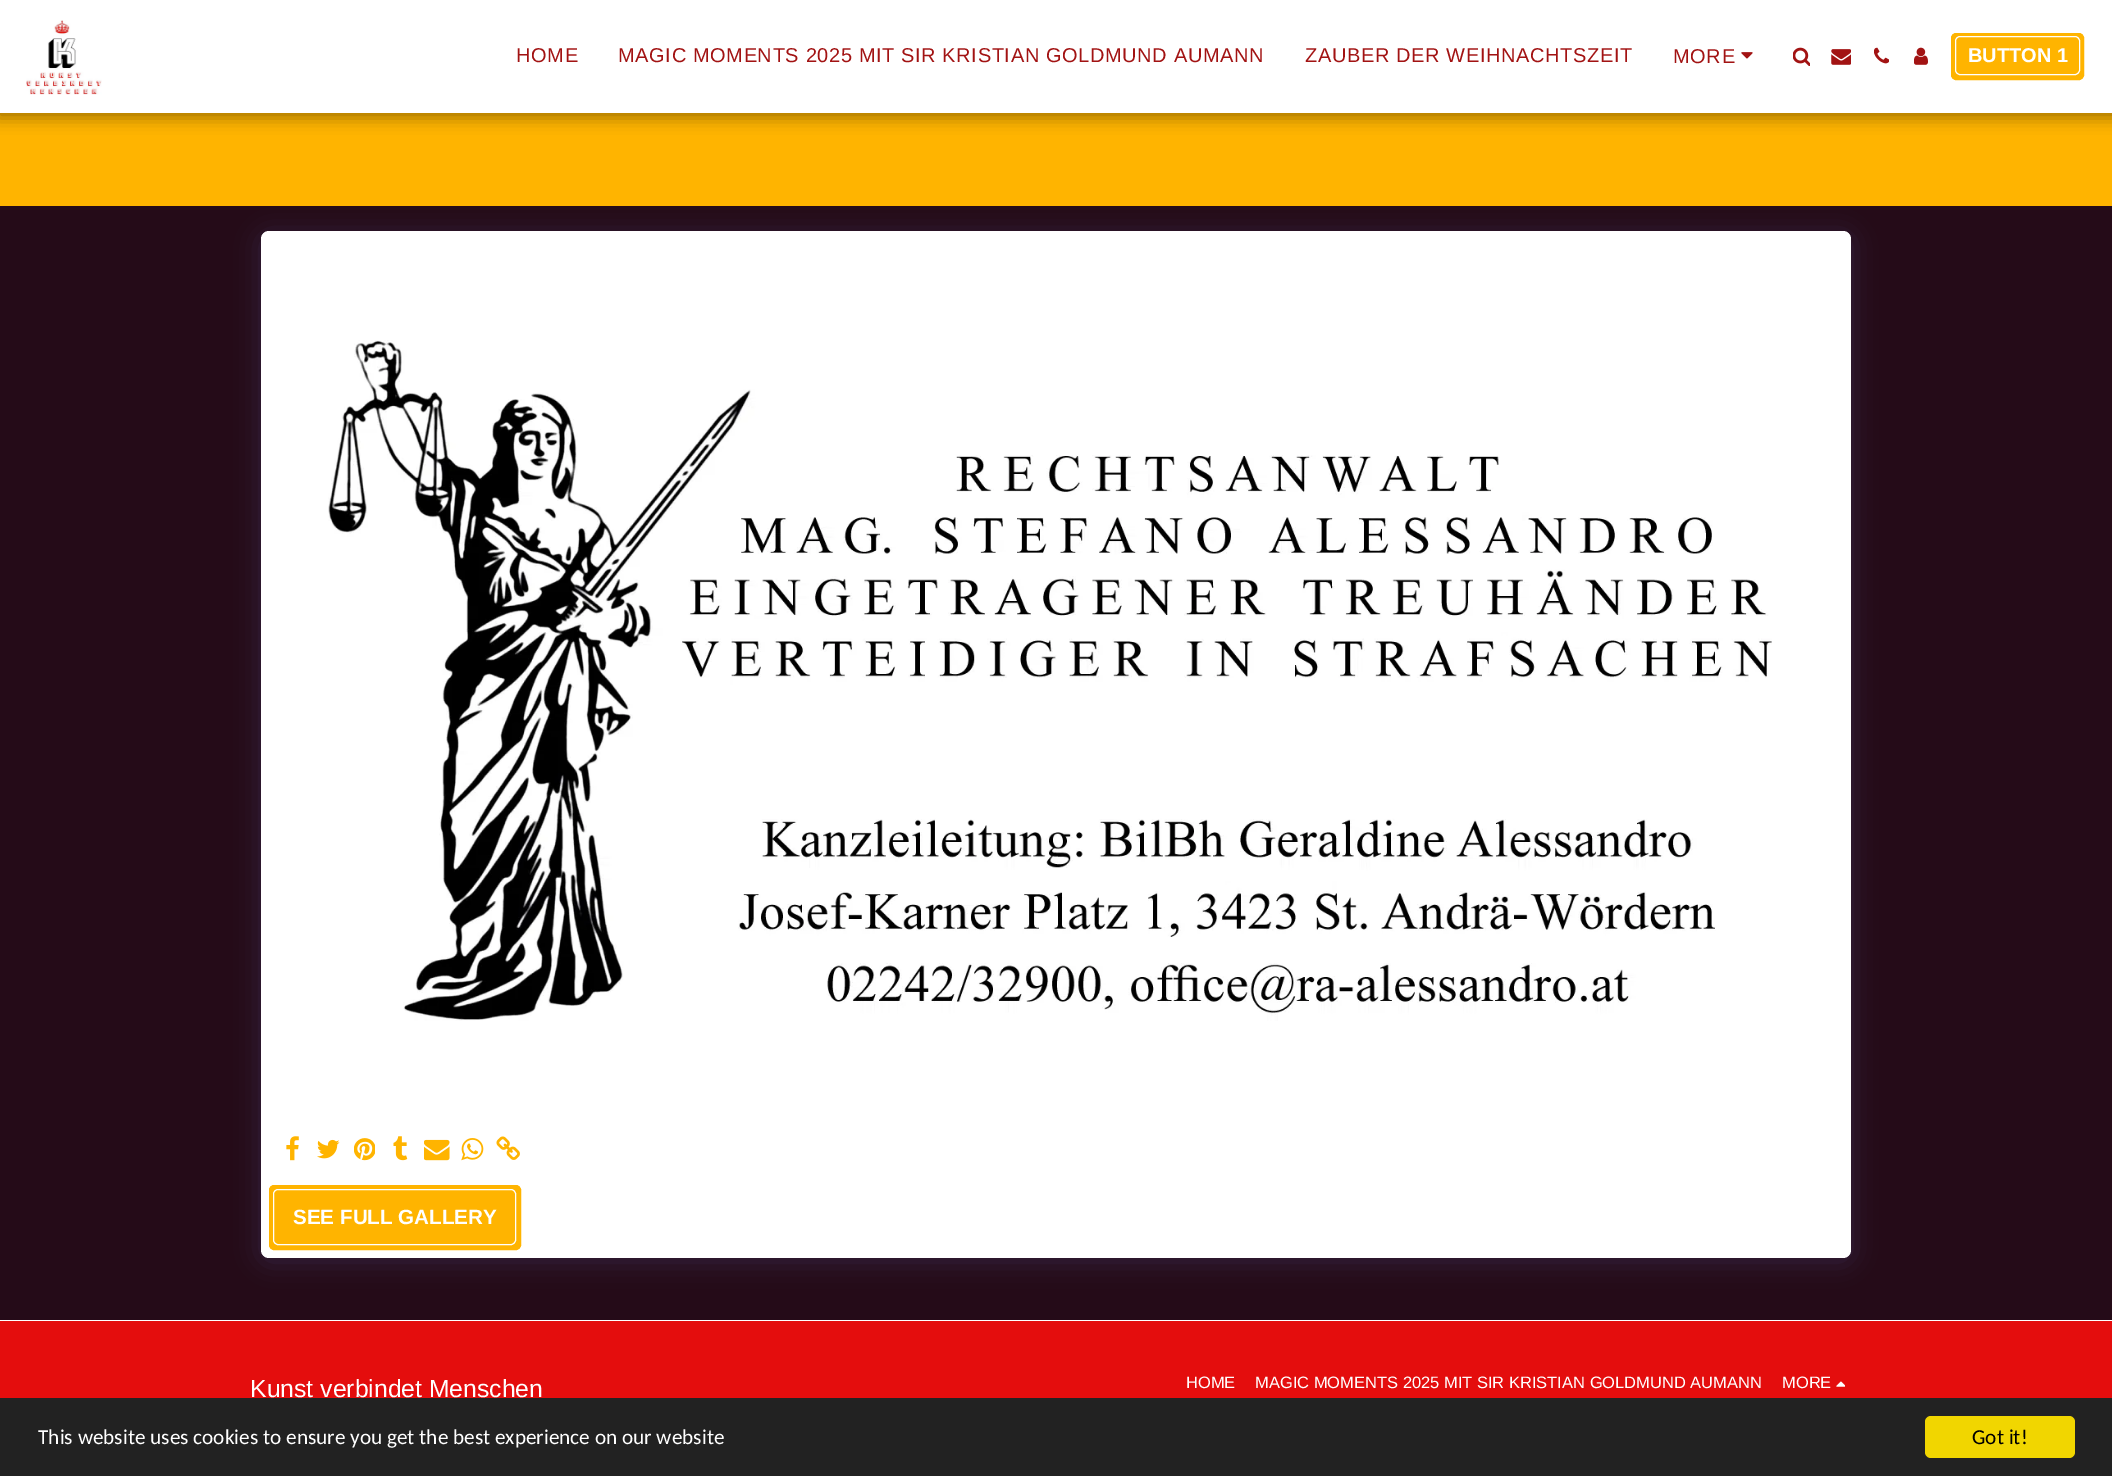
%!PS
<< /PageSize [2112 1476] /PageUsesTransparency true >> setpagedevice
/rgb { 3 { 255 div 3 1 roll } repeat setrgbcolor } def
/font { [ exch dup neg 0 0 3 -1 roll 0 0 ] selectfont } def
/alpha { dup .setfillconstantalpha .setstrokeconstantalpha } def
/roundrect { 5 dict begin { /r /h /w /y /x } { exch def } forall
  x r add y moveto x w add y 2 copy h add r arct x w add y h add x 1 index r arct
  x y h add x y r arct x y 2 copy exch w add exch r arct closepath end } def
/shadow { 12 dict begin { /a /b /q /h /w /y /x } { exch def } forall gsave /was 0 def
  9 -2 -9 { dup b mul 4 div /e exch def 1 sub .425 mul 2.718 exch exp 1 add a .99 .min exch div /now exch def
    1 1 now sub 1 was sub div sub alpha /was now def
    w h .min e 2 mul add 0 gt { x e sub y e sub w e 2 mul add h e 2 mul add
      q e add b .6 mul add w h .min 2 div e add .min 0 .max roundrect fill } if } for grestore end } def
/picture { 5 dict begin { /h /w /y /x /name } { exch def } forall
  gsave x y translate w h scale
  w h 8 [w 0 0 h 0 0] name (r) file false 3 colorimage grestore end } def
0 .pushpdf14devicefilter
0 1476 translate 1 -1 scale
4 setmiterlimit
37 11 24 rgb
0 0 2112 1476 rectfill
255 180 0 rgb
0 113 2112 93 rectfill
0 0 0 rgb
-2 0 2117 118 0 7.5 0.35 shadow
255 255 255 rgb
0 0 2112 113 rectfill
(img/1.rgb) 26 20 76 75 picture
(img/2.rgb) 1741 52 12 7 picture
(img/3.rgb) 1793 47 17 19 picture
(img/4.rgb) 1831 49 20 16 picture
(img/5.rgb) 1874 47 15 17 picture
(img/6.rgb) 1914 47 14 18 picture
255 180 0 rgb
1951.5 33.5 132 46 4.5 roundrect gsave fill grestore
stroke
255 255 255 rgb
1955.5 36.5 124 38 4.5 roundrect stroke
77 63 122 rgb
261 235 1590 1026 8 12.5 0.4 shadow
255 255 255 rgb
261 231 1590 1027 8 roundrect fill
(img/7.rgb) 328 340 1444 681 picture
(img/8.rgb) 286 1136 13 25 picture
(img/9.rgb) 317 1139 23 20 picture
(img/10.rgb) 354 1138 21 23 picture
(img/11.rgb) 393 1136 15 25 picture
(img/12.rgb) 424 1139 26 22 picture
(img/13.rgb) 461 1138 23 23 picture
(img/14.rgb) 496 1136 24 24 picture
255 180 0 rgb
269.5 1185.5 251 64 4.5 roundrect gsave fill grestore
stroke
255 255 255 rgb
273.5 1189.5 242 55 4.5 roundrect stroke
228 13 13 rgb
0 1321 2112 77 rectfill
255 255 255 rgb
0 1320 2112 1 rectfill
(img/15.rgb) 1836 1381 9 6 picture
34 34 34 rgb
0 1398 2112 78 rectfill
241 214 0 rgb
1925 1416 150 42 6 roundrect fill
/LiberationSans-Regular 20 font
162 19 19 rgb
516 62 moveto 0.62 0 (HOME) ashow
618 62 moveto 0.62 0 (MAGIC MOMENTS 2025 MIT SIR KRISTIAN GOLDMUND AUMANN) ashow
1305 62 moveto 0.62 0 (ZAUBER DER WEIHNACHTSZEIT) ashow
1673 63 moveto 0.62 0 (MORE) ashow
/LiberationSans-Bold 20 font
255 255 255 rgb
1968 62 moveto (BUTTON 1) show
/LiberationSans-Bold 20.6 font
293 1224 moveto (SEE FULL GALLERY) show
/LiberationSans-Regular 24.75 font
250 1397 moveto (Kunst verbindet Menschen) show
/LiberationSans-Regular 16.5 font
[
  [(HOME) 1186 1388]
  [(MAGIC MOMENTS 2025 MIT SIR KRISTIAN GOLDMUND AUMANN) 1255 1388]
  [(MORE) 1782 1388]
] { aload pop moveto show } forall
/Carlito-Regular 21.25 font
38 1444 moveto (This website uses cookies to ensure you get the best experience on our website) show
0 0 0 rgb
1972 1444 moveto (Got it!) show
.poppdf14devicefilter showpage
